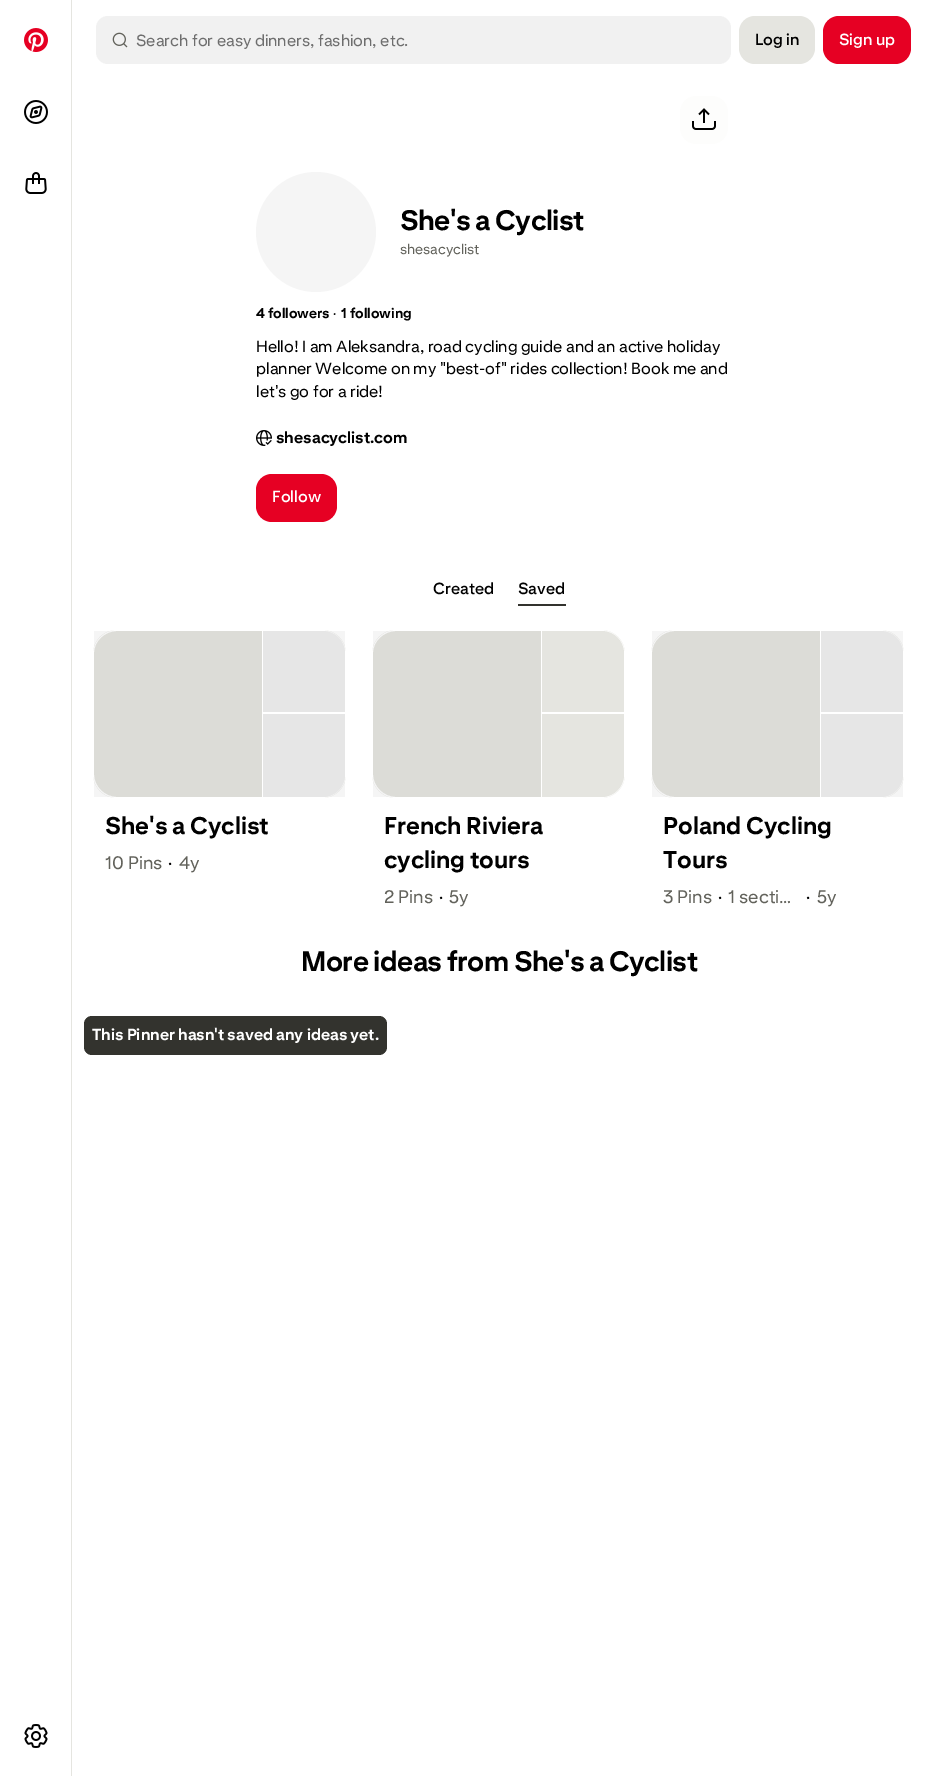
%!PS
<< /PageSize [927 1776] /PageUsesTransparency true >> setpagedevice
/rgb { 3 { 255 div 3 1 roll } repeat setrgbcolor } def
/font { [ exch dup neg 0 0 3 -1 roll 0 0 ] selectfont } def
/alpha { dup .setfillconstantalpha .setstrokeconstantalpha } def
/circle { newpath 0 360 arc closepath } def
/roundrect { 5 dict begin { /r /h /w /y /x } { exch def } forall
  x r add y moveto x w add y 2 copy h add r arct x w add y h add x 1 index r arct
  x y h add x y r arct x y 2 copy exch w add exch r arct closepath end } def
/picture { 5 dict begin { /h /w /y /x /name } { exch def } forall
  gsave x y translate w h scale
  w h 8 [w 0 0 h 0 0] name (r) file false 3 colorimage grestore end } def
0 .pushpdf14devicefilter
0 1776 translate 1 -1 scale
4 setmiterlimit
255 255 255 rgb
0 0 927 1776 rectfill
229 229 224 rgb
71 0 1 1776 rectfill
(img/1.rgb) 24 28 24 24 picture
(img/2.rgb) 24 100 24 24 picture
(img/3.rgb) 25 172 22 22 picture
(img/4.rgb) 24 1724 24 24 picture
241 241 241 rgb
96 16 635 48 12 roundrect fill
(img/5.rgb) 112 32 16 16 picture
229 229 224 rgb
739 16 76 48 16 roundrect fill
230 0 35 rgb
823 16 88 48 16 roundrect fill
253 253 252 rgb
680 96 48 48 16 roundrect fill
(img/6.rgb) 692 108 24 22 picture
245 245 245 rgb
316 232 60 circle fill
(img/7.rgb) 256 430 16 16 picture
230 0 35 rgb
256 474 81 48 16 roundrect fill
51 51 46 rgb
518 604 48 2 rectfill
229 229 224 rgb
117 630 moveto 262 630 lineto 262 798 lineto 117 798 lineto 103.5 798 93 787.5 93 774 curveto 93 654 lineto 93 640.5 103.5 630 117 630 curveto closepath fill
255 255 255 rgb
117 630 moveto 262 630 lineto 262 631 lineto 117 631 lineto 105 631 94 641 94 653 curveto 94 774 lineto 94 787 105 797 117 797 curveto 262 797 lineto 262 798 lineto 117 798 lineto 104 798 93 787 93 774 curveto 93 654 lineto 93 641 104 630 117 630 curveto closepath fill
0.04 alpha
0 0 0 rgb
94 631 168 166 rectfill
1 alpha
229 229 224 rgb
262 630 moveto 322 630 lineto 335.5 630 346 640.5 346 654 curveto 346 714 lineto 262 714 lineto closepath fill
255 255 255 rgb
262 630 moveto 262 714 lineto 346 714 lineto 346 654 lineto 346 641 335 630 322 630 curveto closepath fill
239 239 239 rgb
263 631 moveto 323 631 lineto 335 631 345 641 345 653 curveto 345 712 lineto 263 712 lineto closepath fill
0.04 alpha
0 0 0 rgb
263 631 82 81 rectfill
1 alpha
229 229 224 rgb
262 714 moveto 346 714 lineto 346 774 lineto 346 787.5 335.5 798 322 798 curveto 262 798 lineto closepath fill
255 255 255 rgb
262 714 moveto 346 714 lineto 346 774 lineto 346 787 335 798 322 798 curveto 262 798 lineto closepath 263 714 moveto 345 714 lineto 345 774 lineto 345 787 334 797 322 797 curveto 263 797 lineto closepath eofill
239 239 239 rgb
263 714 moveto 345 714 lineto 345 775 lineto 345 787 335 797 323 797 curveto 263 797 lineto closepath fill
0.04 alpha
0 0 0 rgb
263 714 82 83 rectfill
1 alpha
229 229 224 rgb
396 630 moveto 541 630 lineto 541 798 lineto 396 798 lineto 382.5 798 372 787.5 372 774 curveto 372 654 lineto 372 640.5 382.5 630 396 630 curveto closepath fill
255 255 255 rgb
396 630 moveto 541 630 lineto 541 631 lineto 396 631 lineto 384 631 373 641 373 653 curveto 373 774 lineto 373 787 384 797 396 797 curveto 541 797 lineto 541 798 lineto 396 798 lineto 383 798 372 787 372 774 curveto 372 654 lineto 372 641 383 630 396 630 curveto closepath fill
0.04 alpha
0 0 0 rgb
373 631 168 166 rectfill
1 alpha
229 229 224 rgb
541 630 moveto 601 630 lineto 614.5 630 625 640.5 625 654 curveto 625 714 lineto 541 714 lineto closepath fill
255 255 255 rgb
541 630 moveto 541 714 lineto 625 714 lineto 625 654 lineto 625 641 614 630 601 630 curveto closepath fill
229 229 224 rgb
542 631 moveto 602 631 lineto 614 631 624 641 624 653 curveto 624 712 lineto 542 712 lineto closepath fill
541 714 moveto 625 714 lineto 625 774 lineto 625 787.5 614.5 798 601 798 curveto 541 798 lineto closepath fill
255 255 255 rgb
541 714 moveto 625 714 lineto 625 774 lineto 625 787 614 798 601 798 curveto 541 798 lineto closepath 542 714 moveto 624 714 lineto 624 774 lineto 624 787 613 797 601 797 curveto 542 797 lineto closepath eofill
229 229 224 rgb
542 714 moveto 624 714 lineto 624 775 lineto 624 787 614 797 602 797 curveto 542 797 lineto closepath fill
675 630 moveto 820 630 lineto 820 798 lineto 675 798 lineto 661.5 798 651 787.5 651 774 curveto 651 654 lineto 651 640.5 661.5 630 675 630 curveto closepath fill
255 255 255 rgb
675 630 moveto 820 630 lineto 820 631 lineto 675 631 lineto 663 631 652 641 652 653 curveto 652 774 lineto 652 787 663 797 675 797 curveto 820 797 lineto 820 798 lineto 675 798 lineto 662 798 651 787 651 774 curveto 651 654 lineto 651 641 662 630 675 630 curveto closepath fill
0.04 alpha
0 0 0 rgb
652 631 168 166 rectfill
1 alpha
229 229 224 rgb
820 630 moveto 880 630 lineto 893.5 630 904 640.5 904 654 curveto 904 714 lineto 820 714 lineto closepath fill
255 255 255 rgb
820 630 moveto 820 714 lineto 904 714 lineto 904 654 lineto 904 641 893 630 880 630 curveto closepath fill
239 239 239 rgb
821 631 moveto 881 631 lineto 893 631 903 641 903 653 curveto 903 712 lineto 821 712 lineto closepath fill
0.04 alpha
0 0 0 rgb
821 631 82 81 rectfill
1 alpha
229 229 224 rgb
820 714 moveto 904 714 lineto 904 774 lineto 904 787.5 893.5 798 880 798 curveto 820 798 lineto closepath fill
255 255 255 rgb
820 714 moveto 904 714 lineto 904 774 lineto 904 787 893 798 880 798 curveto 820 798 lineto closepath 821 714 moveto 903 714 lineto 903 774 lineto 903 787 892 797 880 797 curveto 821 797 lineto closepath eofill
239 239 239 rgb
821 714 moveto 903 714 lineto 903 775 lineto 903 787 893 797 881 797 curveto 821 797 lineto closepath fill
0.04 alpha
0 0 0 rgb
821 714 82 83 rectfill
1 alpha
51 51 46 rgb
84 1016 303 39 8 roundrect fill
/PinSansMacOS-Regular 16 font
110 110 110 rgb
136 46 moveto (Search for easy dinners, fashion, etc.) show
/PinSansMacOS-Medium 16 font
0 0 0 rgb
755 45 moveto (Log in) show
255 255 255 rgb
839 45 moveto (Sign up) show
/PinSansMacOS-Bold 28 font
0 0 0 rgb
400 230 moveto -0.5 0 (She's a Cyclist) ashow
/PinSansMacOS-Regular 14 font
98 98 91 rgb
400 254 moveto (shesacyclist) show
/PinSansMacOS-Bold 14 font
0 0 0 rgb
256 318 moveto (4 followers) show
/PinSansMacOS-Regular 14 font
333 318 moveto (·) show
/PinSansMacOS-Bold 14 font
341 318 moveto (1 following) show
/PinSansMacOS-Regular 16 font
[
  [(Hello! I am Aleksandra, road cycling guide and an active holiday) 256 352]
  [(planner Welcome on my "best-of" rides collection! Book me and) 256 374]
  [(let's go for a ride!) 256 397]
] { aload pop moveto show } forall
/PinSansMacOS-Bold 16 font
276 443 moveto (shesacyclist.com) show
/PinSansMacOS-Medium 16 font
255 255 255 rgb
272 502 moveto (Follow) show
0 0 0 rgb
433 594 moveto (Created) show
518 594 moveto (Saved) show
/PinSansMacOS-Bold 24 font
105 834 moveto (She's a Cyclist) show
/PinSansMacOS-Regular 18 font
98 98 91 rgb
105 869 moveto (10 Pins) show
0 0 0 rgb
168 869 moveto (·) show
98 98 91 rgb
179 869 moveto (4y) show
/PinSansMacOS-Bold 24 font
0 0 0 rgb
384 834 moveto (French Riviera) show
384 868 moveto (cycling tours) show
/PinSansMacOS-Regular 18 font
98 98 91 rgb
384 903 moveto (2 Pins) show
0 0 0 rgb
439 903 moveto (·) show
98 98 91 rgb
449 903 moveto (5y) show
/PinSansMacOS-Bold 24 font
0 0 0 rgb
663 834 moveto (Poland Cycling) show
663 868 moveto (Tours) show
/PinSansMacOS-Regular 18 font
98 98 91 rgb
663 903 moveto (3 Pins) show
0 0 0 rgb
718 903 moveto (·) show
98 98 91 rgb
728 903 moveto (1 secti…) show
0 0 0 rgb
806 903 moveto (·) show
98 98 91 rgb
817 903 moveto (5y) show
/PinSansMacOS-Bold 28 font
0 0 0 rgb
301 971 moveto -0.5 0 (More ideas from She's a Cyclist) ashow
/PinSansMacOS-Bold 16 font
255 255 255 rgb
92 1040 moveto (This Pinner hasn't saved any ideas yet.) show
.poppdf14devicefilter showpage
